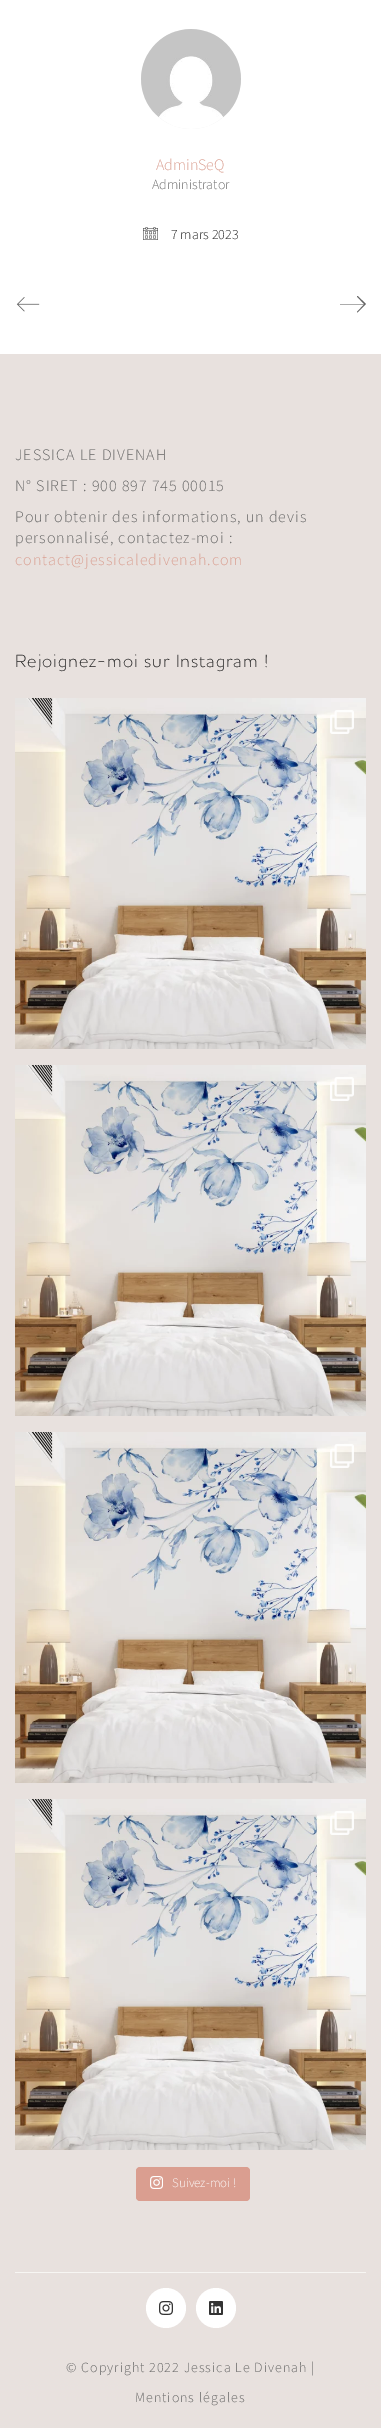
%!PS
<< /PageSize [381 2428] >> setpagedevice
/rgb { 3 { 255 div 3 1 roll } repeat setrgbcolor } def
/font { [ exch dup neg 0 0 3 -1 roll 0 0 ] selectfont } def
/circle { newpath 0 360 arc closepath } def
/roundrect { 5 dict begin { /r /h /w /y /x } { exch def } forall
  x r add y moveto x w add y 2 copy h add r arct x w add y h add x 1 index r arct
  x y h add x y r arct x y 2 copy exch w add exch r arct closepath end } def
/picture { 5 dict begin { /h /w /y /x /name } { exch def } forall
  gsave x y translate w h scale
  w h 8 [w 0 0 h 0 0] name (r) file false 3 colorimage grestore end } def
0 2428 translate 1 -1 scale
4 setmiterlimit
255 255 255 rgb
0 0 381 2428 rectfill
238 238 238 rgb
191 79 50 circle fill
(img/1.rgb) 141 29 100 100 picture
(img/2.rgb) 143 227 15 13 picture
(img/3.rgb) 16 297 24 15 picture
100 100 100 rgb
357.5 296 moveto 357 296.5 lineto 364 304 lineto 340 304 lineto 340 304.5 lineto 364 304.5 lineto 357 312 lineto 357.5 312.5 lineto 366 304 lineto closepath fill
232 225 222 rgb
0 354 381 2074 rectfill
(img/4.rgb) 15 698 351 351 picture
(img/5.rgb) 330 710 24 24 picture
(img/4.rgb) 15 1065 351 351 picture
(img/5.rgb) 330 1077 24 24 picture
(img/4.rgb) 15 1432 351 351 picture
(img/5.rgb) 330 1444 24 24 picture
(img/4.rgb) 15 1799 351 351 picture
(img/5.rgb) 330 1811 24 24 picture
218 158 144 rgb
136 2167 114 34 4 roundrect fill
(img/6.rgb) 150 2176 13 13 picture
247 246 243 rgb
15 2272 351 1 rectfill
255 255 255 rgb
166 2308 20 circle fill
(img/7.rgb) 159 2301 14 14 picture
216 2308 20 circle fill
(img/8.rgb) 209 2301 14 14 picture
/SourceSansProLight-Light 16 font
218 158 144 rgb
156 170 moveto (AdminSeQ) show
/SourceSansProLight-Light 14 font
109 109 109 rgb
152 189 moveto (Administrator) show
34 34 34 rgb
171 239 moveto (7 mars 2023) show
/SourceSansProLight-Light 16 font
100 100 100 rgb
15 460 moveto 1 0 (JESSICA LE DIVENAH) ashow
15 491 moveto 1 0 (N° SIRET : 900 897 745 00015) ashow
15 522 moveto 1 0 (Pour obtenir des informations, un devis) ashow
15 543 moveto 1 0 (personnalisé, contactez-moi :) ashow
218 158 144 rgb
15 565 moveto 1 0 (contact@jessicaledivenah.com) ashow
/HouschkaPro-Light 18 font
34 34 34 rgb
15 667 moveto 1 0 (Rejoignez-moi sur Instagram !) ashow
/SourceSansProLight-Light 13 font
255 255 255 rgb
172 2187 moveto (Suivez-moi !) show
/SourceSansProLight-Light 14 font
100 100 100 rgb
66 2372 moveto 1 0 (© Copyright 2022 Jessica Le Divenah |) ashow
135 2402 moveto 1 0 (Mentions légales) ashow
showpage
